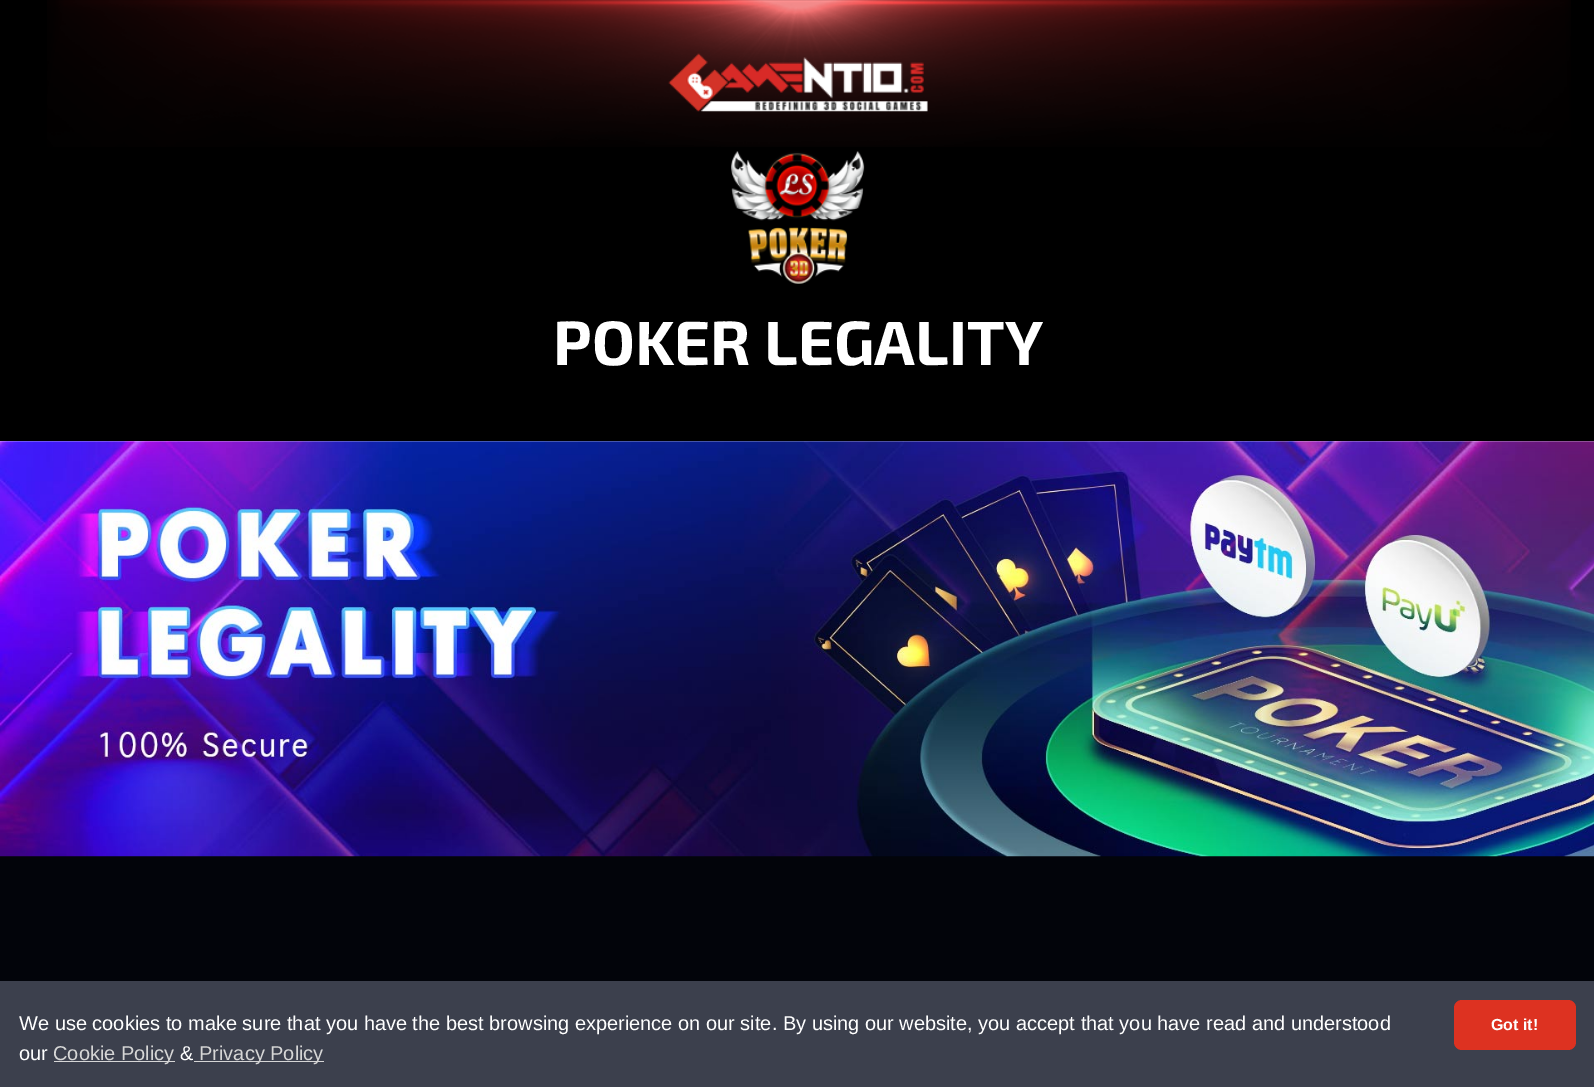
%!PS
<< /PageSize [1594 1087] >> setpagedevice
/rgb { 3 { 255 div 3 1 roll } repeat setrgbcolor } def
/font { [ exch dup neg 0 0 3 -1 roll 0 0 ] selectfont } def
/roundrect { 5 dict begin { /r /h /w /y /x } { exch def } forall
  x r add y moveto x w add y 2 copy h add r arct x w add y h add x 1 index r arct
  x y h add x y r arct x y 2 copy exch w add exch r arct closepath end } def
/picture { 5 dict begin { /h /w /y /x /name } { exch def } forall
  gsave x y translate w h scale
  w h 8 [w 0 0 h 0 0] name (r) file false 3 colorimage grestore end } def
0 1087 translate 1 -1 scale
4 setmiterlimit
255 255 255 rgb
0 0 1594 1087 rectfill
0 0 0 rgb
0 0 1594 441 rectfill
(img/1.rgb) 47 0 1524 147 picture
(img/2.rgb) 668 53 260 59 picture
(img/3.rgb) 731 151 134 133 picture
gsave 0 856 moveto 1594 856 lineto 1594 981 lineto 0 981 lineto closepath clip newpath
<< /ShadingType 2 /ColorSpace /DeviceRGB /Coords [797 856 798 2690] /Extend [true true] /Function << /FunctionType 2 /Domain [0 1] /C0 [0.008 0.016 0.039] /C1 [0 0.024 0.078] /N 1 >> >> shfill grestore
(img/4.rgb) 0 441 1594 416 picture
[
  [0 981 1594 106 60 64 77]
  [54 1061 121 1 214 214 214]
  [194 1061 130 1 214 214 214]
] { aload pop rgb rectfill } forall
221 50 33 rgb
1454 1000 122 50 8 roundrect fill
/Exo2-Bold 62.5 font
255 255 255 rgb
553 365 moveto (POKER LEGALITY) show
/LiberationSans-Regular 20 font
19 1030 moveto (We use cookies to make sure that you have the best browsing experience on our site. By using our website, you accept that you have read and understood) show
19 1060 moveto (our) show
214 214 214 rgb
53 1060 moveto (Cookie Policy) show
255 255 255 rgb
180 1060 moveto (&) show
214 214 214 rgb
199 1060 moveto (Privacy Policy) show
/LiberationSans-Bold 16 font
255 255 255 rgb
1491 1030 moveto (Got it!) show
showpage
